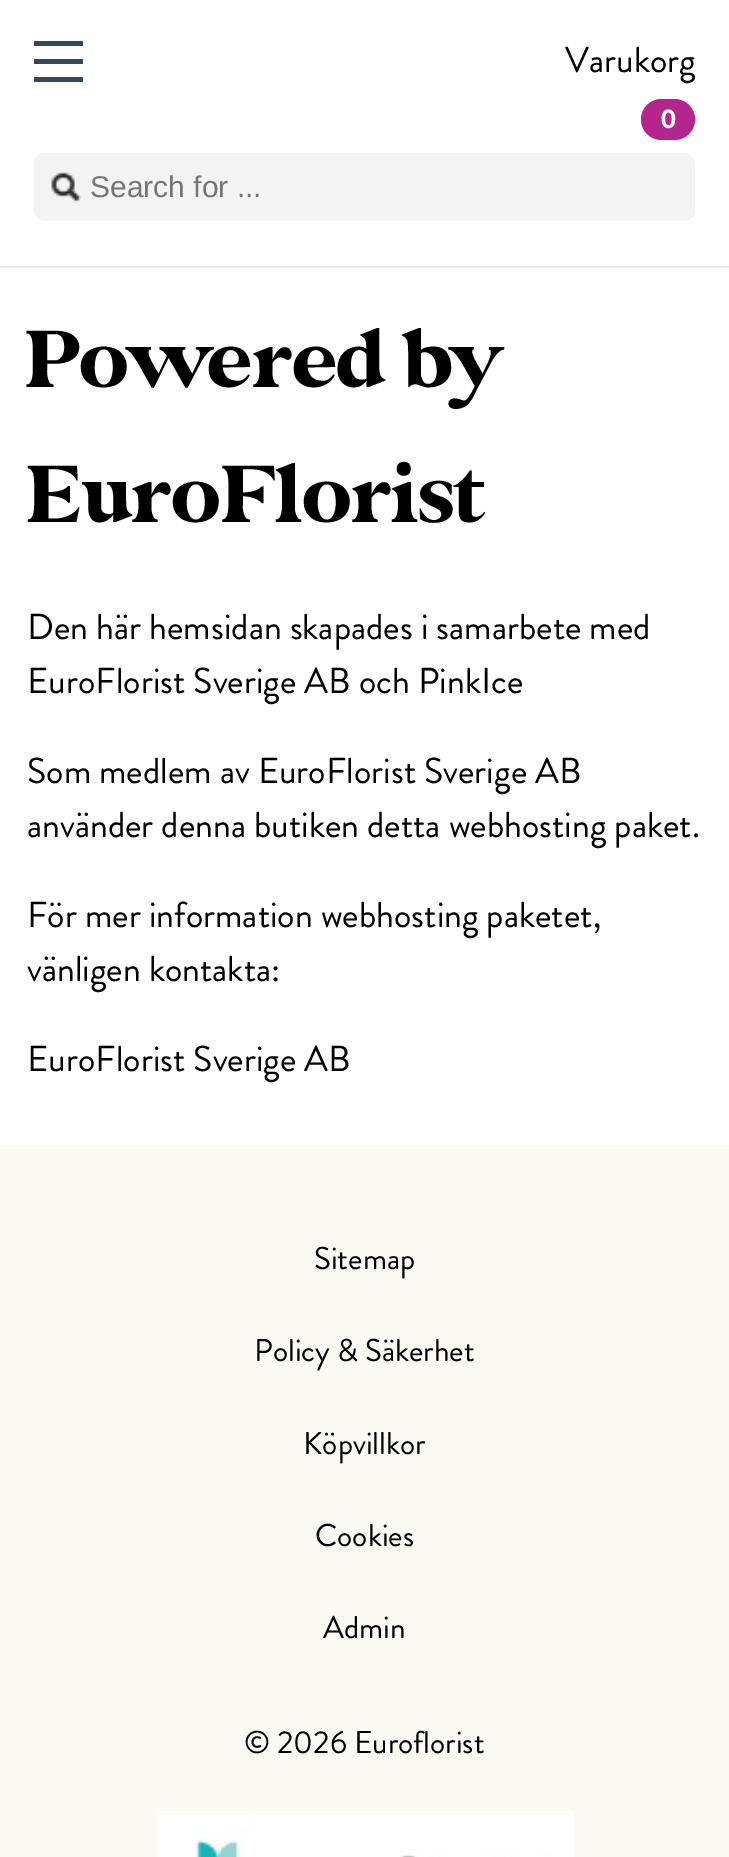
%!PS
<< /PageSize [729 1857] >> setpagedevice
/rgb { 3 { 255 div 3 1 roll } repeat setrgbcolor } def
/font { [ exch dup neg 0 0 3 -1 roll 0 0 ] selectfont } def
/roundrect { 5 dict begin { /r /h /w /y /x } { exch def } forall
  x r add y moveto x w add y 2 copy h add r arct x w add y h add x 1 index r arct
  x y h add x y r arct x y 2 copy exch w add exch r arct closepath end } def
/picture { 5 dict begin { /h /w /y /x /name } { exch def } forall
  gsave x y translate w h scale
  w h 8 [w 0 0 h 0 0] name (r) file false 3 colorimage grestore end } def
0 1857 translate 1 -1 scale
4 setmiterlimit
255 255 255 rgb
0 0 729 1857 rectfill
[
  [0 266 729 2 235 235 235]
  [34 41 49 5 52 72 90]
  [34 59 49 5 52 72 90]
  [34 77 49 5 52 72 90]
] { aload pop rgb rectfill } forall
181 37 142 rgb
641 99 54 41 20.5 roundrect fill
243 243 243 rgb
34 153 661 68 11 roundrect fill
(img/1.rgb) 51 172 30 31 picture
250 249 243 rgb
0 1145 729 712 rectfill
(img/2.rgb) 157 1811 417 46 picture
/BrandonGrotesque-Regular 36 font
0 0 0 rgb
565 72 moveto (Varukorg) show
/BrandonGrotesque-Bold 27 font
255 255 255 rgb
660 128 moveto (0) show
/LiberationSans-Regular 30 font
117 117 117 rgb
90 197 moveto (Search for ...) show
/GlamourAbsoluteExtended-Regular 90 font
0 0 0 rgb
27 387 moveto (Powered by) show
27 522 moveto (EuroFlorist) show
/BrandonGrotesque-Regular 36 font
[
  [(Den här hemsidan skapades i samarbete med) 27 639]
  [(EuroFlorist Sverige AB och PinkIce) 27 693]
  [(Som medlem av EuroFlorist Sverige AB) 27 783]
  [(använder denna butiken detta webhosting paket.) 27 837]
  [(För mer information webhosting paketet,) 27 927]
  [(vänligen kontakta:) 27 981]
  [(EuroFlorist Sverige AB) 27 1071]
] { aload pop moveto show } forall
/BrandonGrotesque-Regular 31.5 font
[
  [(Sitemap) 314 1269]
  [(Policy & Säkerhet) 254 1361]
  [(Köpvillkor) 303 1454]
  [(Cookies) 315 1546]
  [(Admin) 323 1638]
  [(© 2026 Euroflorist) 244 1753]
] { aload pop moveto show } forall
showpage
